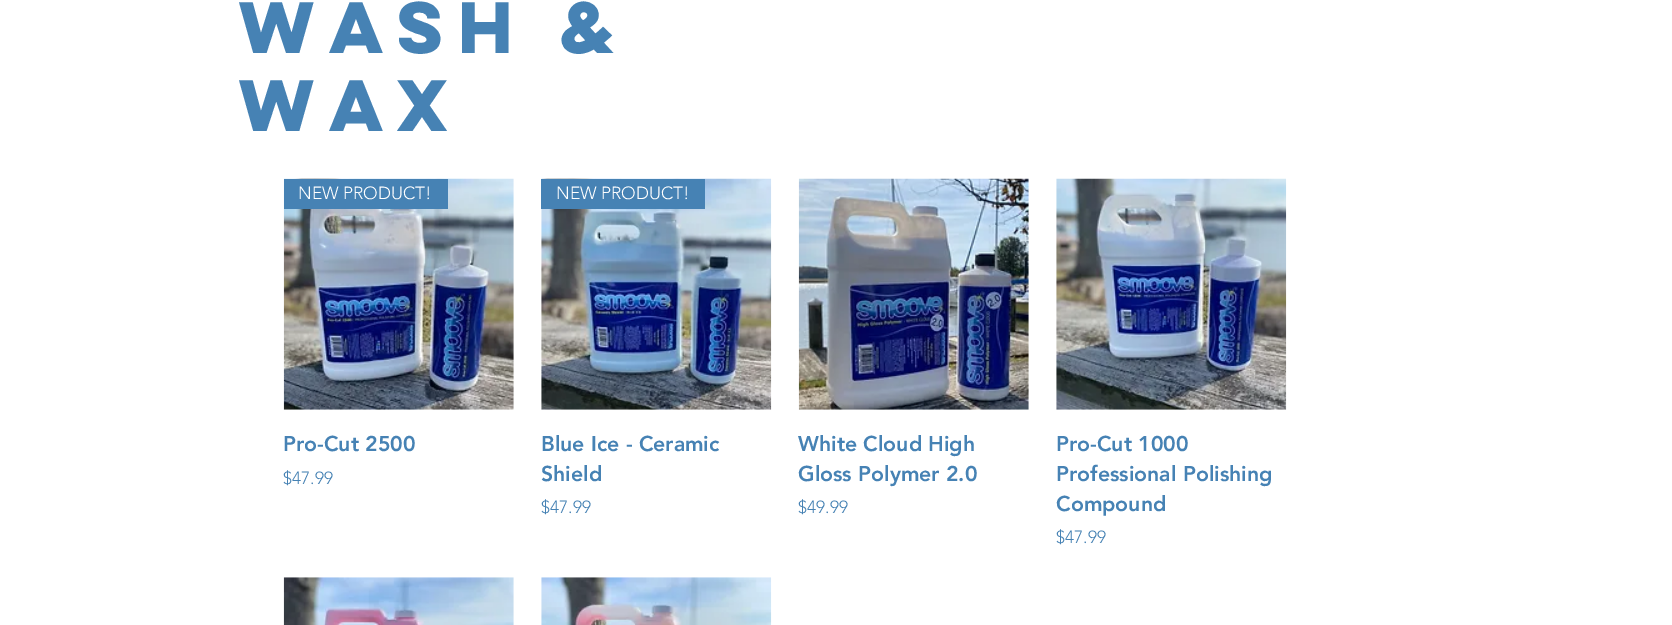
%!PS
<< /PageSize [1672 625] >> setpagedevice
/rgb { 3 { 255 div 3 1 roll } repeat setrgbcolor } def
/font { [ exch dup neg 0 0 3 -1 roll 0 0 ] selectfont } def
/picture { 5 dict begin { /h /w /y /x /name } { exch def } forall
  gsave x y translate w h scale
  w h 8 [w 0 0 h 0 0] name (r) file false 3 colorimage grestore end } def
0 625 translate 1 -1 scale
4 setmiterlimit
255 255 255 rgb
0 0 1672 625 rectfill
(img/1.rgb) 283 178 231 232 picture
70 130 180 rgb
284 179 164 30 rectfill
(img/2.rgb) 541 178 231 232 picture
541 179 164 30 rectfill
(img/3.rgb) 798 178 231 232 picture
(img/4.rgb) 1056 178 231 232 picture
(img/5.rgb) 283 577 231 48 picture
(img/6.rgb) 541 577 231 48 picture
/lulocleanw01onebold-Bold 65 font
239 53 moveto (Wash &) show
239 131 moveto (Wax) show
/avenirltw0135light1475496-Light 17.5 font
255 255 255 rgb
298 199 moveto (NEW PRODUCT!) show
/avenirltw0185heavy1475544-Black 21.25 font
70 130 180 rgb
283 451 moveto (Pro-Cut 2500) show
/avenirltw0135light1475496-Light 17.5 font
283 484 moveto ($47.99) show
255 255 255 rgb
556 199 moveto (NEW PRODUCT!) show
/avenirltw0185heavy1475544-Black 21.25 font
70 130 180 rgb
541 451 moveto (Blue Ice - Ceramic) show
541 481 moveto (Shield) show
/avenirltw0135light1475496-Light 17.5 font
541 513 moveto ($47.99) show
/avenirltw0185heavy1475544-Black 21.25 font
798 451 moveto (White Cloud High) show
798 481 moveto (Gloss Polymer 2.0) show
/avenirltw0135light1475496-Light 17.5 font
798 513 moveto ($49.99) show
/avenirltw0185heavy1475544-Black 21.25 font
[
  [(Pro-Cut 1000) 1056 451]
  [(Professional Polishing) 1056 481]
  [(Compound) 1056 511]
] { aload pop moveto show } forall
/avenirltw0135light1475496-Light 17.5 font
1056 543 moveto ($47.99) show
showpage
